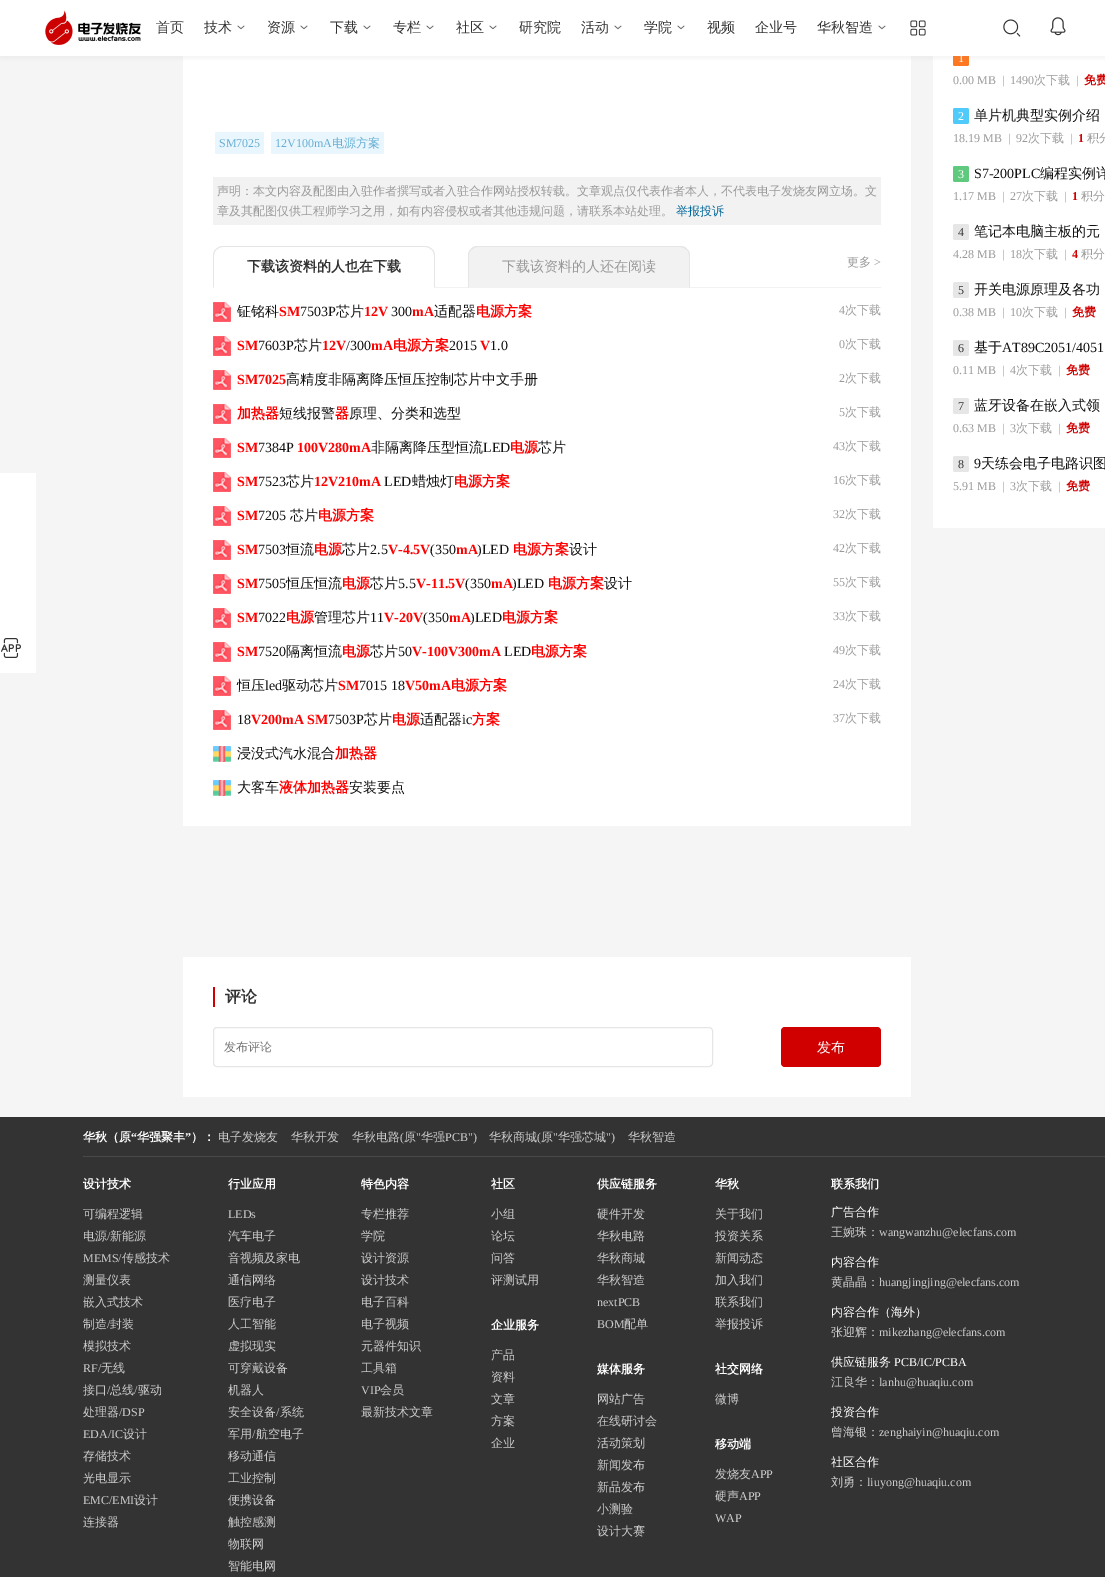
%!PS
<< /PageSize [1105 1577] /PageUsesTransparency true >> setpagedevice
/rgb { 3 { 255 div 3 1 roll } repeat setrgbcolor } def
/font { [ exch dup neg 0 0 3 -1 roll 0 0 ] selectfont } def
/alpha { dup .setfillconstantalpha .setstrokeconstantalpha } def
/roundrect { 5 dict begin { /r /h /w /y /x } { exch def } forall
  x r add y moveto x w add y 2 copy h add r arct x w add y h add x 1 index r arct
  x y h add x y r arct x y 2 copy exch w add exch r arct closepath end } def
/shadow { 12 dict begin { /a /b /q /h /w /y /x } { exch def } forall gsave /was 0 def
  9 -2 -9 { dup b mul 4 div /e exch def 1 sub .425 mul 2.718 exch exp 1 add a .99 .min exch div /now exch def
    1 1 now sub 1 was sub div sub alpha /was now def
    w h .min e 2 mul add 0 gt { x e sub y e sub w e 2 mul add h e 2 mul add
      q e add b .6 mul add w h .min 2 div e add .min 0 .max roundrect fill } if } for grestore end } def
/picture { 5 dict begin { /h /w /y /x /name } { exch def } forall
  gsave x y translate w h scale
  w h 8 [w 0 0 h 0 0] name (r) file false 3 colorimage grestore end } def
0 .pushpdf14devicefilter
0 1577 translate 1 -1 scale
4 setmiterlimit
245 245 245 rgb
0 0 1105 1577 rectfill
255 255 255 rgb
183 56 728 770 rectfill
933 56 172 472 rectfill
255 120 33 rgb
953 50 16 16 2 roundrect fill
149 149 149 rgb
0 3 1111 56 0 2 0.1 shadow
255 255 255 rgb
0 0 1105 56 rectfill
(img/1.rgb) 45 10 96 35 picture
(img/2.rgb) 237 25 8 5 picture
(img/2.rgb) 300 25 8 5 picture
(img/2.rgb) 363 25 8 5 picture
(img/2.rgb) 426 25 8 5 picture
(img/2.rgb) 489 25 8 5 picture
(img/2.rgb) 614 25 8 5 picture
(img/2.rgb) 677 25 8 5 picture
(img/2.rgb) 878 25 8 5 picture
(img/3.rgb) 910 20 16 16 picture
(img/4.rgb) 1003 19 18 18 picture
(img/5.rgb) 1050 17 16 19 picture
0 473 36 200 rectfill
(img/6.rgb) 1 638 20 20 picture
233 246 253 rgb
215 132 49 22 2 roundrect fill
271 132 113 22 2 roundrect fill
242 242 242 rgb
213 177 668 48 rectfill
435 287 446 1 rectfill
230 230 230 rgb
223 246 moveto 220 246 218 247 216 249 curveto 217 250 lineto 218 248 220 247 223 247 curveto 425 247 lineto 428 247 430 248 431 250 curveto 432 249 lineto 430 247 428 246 425 246 curveto closepath fill
435 288 moveto 435 256 lineto 435 253 434 250.5 432 249 curveto 431.5 249.5 lineto 433 251 434 253.5 434 256 curveto 434 287 lineto closepath fill
213 288 moveto 214 287 lineto 214 256 lineto 214 253.5 215 251 216.5 249.5 curveto 216 249 lineto 214 250.5 213 253 213 256 curveto closepath fill
242 242 242 rgb
478 246 moveto 680 246 lineto 685.5 246 690 250.5 690 256 curveto 690 288 lineto 468 288 lineto 468 256 lineto 468 250.5 472.5 246 478 246 curveto closepath fill
230 230 230 rgb
478 246 moveto 475 246 472 247 471 249 curveto 472 250 lineto 473 248 476 247 478 247 curveto 680 247 lineto 682 247 685 248 686 250 curveto 687 249 lineto 686 247 683 246 680 246 curveto closepath fill
690 288 moveto 690 256 lineto 690 253 689 250.5 687 249 curveto 686.5 249.5 lineto 688 251 689 253.5 689 256 curveto 689 287 lineto closepath fill
468 288 moveto 469 287 lineto 469 256 lineto 469 253.5 470 251 471.5 249.5 curveto 471 249 lineto 469 250.5 468 253 468 256 curveto closepath fill
(img/7.rgb) 213 302 18 20 picture
(img/7.rgb) 213 336 18 20 picture
(img/7.rgb) 213 370 18 20 picture
(img/7.rgb) 213 404 18 20 picture
(img/7.rgb) 213 438 18 20 picture
(img/7.rgb) 213 472 18 20 picture
(img/7.rgb) 213 506 18 20 picture
(img/7.rgb) 213 540 18 20 picture
(img/7.rgb) 213 574 18 20 picture
(img/7.rgb) 213 608 18 20 picture
(img/7.rgb) 213 642 18 20 picture
(img/7.rgb) 213 676 18 20 picture
(img/7.rgb) 213 710 18 20 picture
(img/8.rgb) 213 746 18 16 picture
(img/8.rgb) 213 780 18 16 picture
255 255 255 rgb
183 957 728 140 rectfill
208 0 0 rgb
213 987 2 20 rectfill
230 230 230 rgb
213.5 1027.5 499 39 3.5 roundrect stroke
208 0 0 rgb
781 1027 100 40 4 roundrect fill
79 202 249 rgb
953 108 16 16 2 roundrect fill
95 202 126 rgb
953 166 16 16 2 roundrect fill
230 230 230 rgb
953 224 16 16 2 roundrect fill
953 282 16 16 2 roundrect fill
953 340 16 16 2 roundrect fill
953 398 16 16 2 roundrect fill
953 456 16 16 2 roundrect fill
51 51 51 rgb
0 1117 1105 460 rectfill
73 73 73 rgb
83 1156 1022 1 rectfill
/WenQuanYiZenHei-Medium 14 font
51 51 51 rgb
[
  [(首页) 156 32]
  [(技术) 204 32]
  [(资源) 267 32]
  [(下载) 330 32]
  [(专栏) 393 32]
  [(社区) 456 32]
  [(研究院) 519 32]
  [(活动) 581 32]
  [(学院) 644 32]
  [(视频) 707 32]
  [(企业号) 755 32]
  [(华秋智造) 817 32]
] { aload pop moveto show } forall
/LiberationSerif-Regular 12 font
102 174 211 rgb
219 147 moveto (SM7025) show
275 147 moveto (12V100mA) show
/WenQuanYiZenHei-Medium 12 font
332 147 moveto (电源方案) show
153 153 153 rgb
217 195 moveto (声明：本文内容及配图由入驻作者撰写或者入驻合作网站授权转载。文章观点仅代表作者本人，不代表电子发烧友网立场。文) show
217 215 moveto (章及其配图仅供工程师学习之用，如有内容侵权或者其他违规问题，请联系本站处理。) show
0 102 153 rgb
676 215 moveto (举报投诉) show
/WenQuanYiZenHei-Bold 14 font
51 51 51 rgb
247 271 moveto (下载该资料的人也在下载) show
/WenQuanYiZenHei-Medium 14 font
153 153 153 rgb
502 271 moveto (下载该资料的人还在阅读) show
/WenQuanYiZenHei-Medium 12 font
847 266 moveto (更多) show
/LiberationSerif-Regular 12 font
874 266 moveto (>) show
/WenQuanYiZenHei-Medium 14 font
17 17 17 rgb
237 316 moveto (钲铭科) show
/LiberationSerif-Bold 14 font
255 0 0 rgb
279 316 moveto (SM) show
/LiberationSerif-Regular 14 font
17 17 17 rgb
300 316 moveto (7503P) show
/WenQuanYiZenHei-Medium 14 font
336 316 moveto (芯片) show
/LiberationSerif-Bold 14 font
255 0 0 rgb
364 316 moveto (12V) show
/LiberationSerif-Regular 14 font
17 17 17 rgb
391 316 moveto (300) show
/LiberationSerif-Bold 14 font
255 0 0 rgb
412 316 moveto (mA) show
/WenQuanYiZenHei-Medium 14 font
17 17 17 rgb
434 316 moveto (适配器) show
/WenQuanYiZenHei-Bold 14 font
255 0 0 rgb
476 316 moveto (电源方案) show
/LiberationSerif-Regular 12 font
153 153 153 rgb
839 314 moveto (4) show
/WenQuanYiZenHei-Medium 12 font
845 314 moveto (次下载) show
/LiberationSerif-Bold 14 font
255 0 0 rgb
237 350 moveto (SM) show
/LiberationSerif-Regular 14 font
17 17 17 rgb
258 350 moveto (7603P) show
/WenQuanYiZenHei-Medium 14 font
294 350 moveto (芯片) show
/LiberationSerif-Bold 14 font
255 0 0 rgb
322 350 moveto (12V) show
/LiberationSerif-Regular 14 font
17 17 17 rgb
346 350 moveto (/300) show
/LiberationSerif-Bold 14 font
255 0 0 rgb
371 350 moveto (mA) show
/WenQuanYiZenHei-Bold 14 font
393 350 moveto (电源方案) show
/LiberationSerif-Regular 14 font
17 17 17 rgb
449 350 moveto (2015) show
/LiberationSerif-Bold 14 font
255 0 0 rgb
480 350 moveto (V) show
/LiberationSerif-Regular 14 font
17 17 17 rgb
490 350 moveto (1.0) show
/LiberationSerif-Regular 12 font
153 153 153 rgb
839 348 moveto (0) show
/WenQuanYiZenHei-Medium 12 font
845 348 moveto (次下载) show
/LiberationSerif-Bold 14 font
255 0 0 rgb
237 384 moveto (SM7025) show
/WenQuanYiZenHei-Medium 14 font
17 17 17 rgb
286 384 moveto (高精度非隔离降压恒压控制芯片中文手册) show
/LiberationSerif-Regular 12 font
153 153 153 rgb
839 382 moveto (2) show
/WenQuanYiZenHei-Medium 12 font
845 382 moveto (次下载) show
/WenQuanYiZenHei-Bold 14 font
255 0 0 rgb
237 418 moveto (加热器) show
/WenQuanYiZenHei-Medium 14 font
17 17 17 rgb
279 418 moveto (短线报警) show
/WenQuanYiZenHei-Bold 14 font
255 0 0 rgb
335 418 moveto (器) show
/WenQuanYiZenHei-Medium 14 font
17 17 17 rgb
349 418 moveto (原理、分类和选型) show
/LiberationSerif-Regular 12 font
153 153 153 rgb
839 416 moveto (5) show
/WenQuanYiZenHei-Medium 12 font
845 416 moveto (次下载) show
/LiberationSerif-Bold 14 font
255 0 0 rgb
237 452 moveto (SM) show
/LiberationSerif-Regular 14 font
17 17 17 rgb
258 452 moveto (7384P) show
/LiberationSerif-Bold 14 font
255 0 0 rgb
297 452 moveto (100V280mA) show
/WenQuanYiZenHei-Medium 14 font
17 17 17 rgb
371 452 moveto (非隔离降压型恒流) show
/LiberationSerif-Regular 14 font
483 452 moveto (LED) show
/WenQuanYiZenHei-Bold 14 font
255 0 0 rgb
510 452 moveto (电源) show
/WenQuanYiZenHei-Medium 14 font
17 17 17 rgb
538 452 moveto (芯片) show
/LiberationSerif-Regular 12 font
153 153 153 rgb
833 450 moveto (43) show
/WenQuanYiZenHei-Medium 12 font
845 450 moveto (次下载) show
/LiberationSerif-Bold 14 font
255 0 0 rgb
237 486 moveto (SM) show
/LiberationSerif-Regular 14 font
17 17 17 rgb
258 486 moveto (7523) show
/WenQuanYiZenHei-Medium 14 font
286 486 moveto (芯片) show
/LiberationSerif-Bold 14 font
255 0 0 rgb
314 486 moveto (12V210mA) show
/LiberationSerif-Regular 14 font
17 17 17 rgb
384 486 moveto (LED) show
/WenQuanYiZenHei-Medium 14 font
412 486 moveto (蜡烛灯) show
/WenQuanYiZenHei-Bold 14 font
255 0 0 rgb
454 486 moveto (电源方案) show
/LiberationSerif-Regular 12 font
153 153 153 rgb
833 484 moveto (16) show
/WenQuanYiZenHei-Medium 12 font
845 484 moveto (次下载) show
/LiberationSerif-Bold 14 font
255 0 0 rgb
237 520 moveto (SM) show
/LiberationSerif-Regular 14 font
17 17 17 rgb
258 520 moveto (7205) show
/WenQuanYiZenHei-Medium 14 font
290 520 moveto (芯片) show
/WenQuanYiZenHei-Bold 14 font
255 0 0 rgb
318 520 moveto (电源方案) show
/LiberationSerif-Regular 12 font
153 153 153 rgb
833 518 moveto (32) show
/WenQuanYiZenHei-Medium 12 font
845 518 moveto (次下载) show
/LiberationSerif-Bold 14 font
255 0 0 rgb
237 554 moveto (SM) show
/LiberationSerif-Regular 14 font
17 17 17 rgb
258 554 moveto (7503) show
/WenQuanYiZenHei-Medium 14 font
286 554 moveto (恒流) show
/WenQuanYiZenHei-Bold 14 font
255 0 0 rgb
314 554 moveto (电源) show
/WenQuanYiZenHei-Medium 14 font
17 17 17 rgb
342 554 moveto (芯片) show
/LiberationSerif-Regular 14 font
370 554 moveto (2.5) show
/LiberationSerif-Bold 14 font
255 0 0 rgb
388 554 moveto (V-4.5V) show
/LiberationSerif-Regular 14 font
17 17 17 rgb
430 554 moveto (\(350) show
/LiberationSerif-Bold 14 font
255 0 0 rgb
456 554 moveto (mA) show
/LiberationSerif-Regular 14 font
17 17 17 rgb
477 554 moveto (\)LED) show
/WenQuanYiZenHei-Bold 14 font
255 0 0 rgb
513 554 moveto (电源方案) show
/WenQuanYiZenHei-Medium 14 font
17 17 17 rgb
569 554 moveto (设计) show
/LiberationSerif-Regular 12 font
153 153 153 rgb
833 552 moveto (42) show
/WenQuanYiZenHei-Medium 12 font
845 552 moveto (次下载) show
/LiberationSerif-Bold 14 font
255 0 0 rgb
237 588 moveto (SM) show
/LiberationSerif-Regular 14 font
17 17 17 rgb
258 588 moveto (7505) show
/WenQuanYiZenHei-Medium 14 font
286 588 moveto (恒压恒流) show
/WenQuanYiZenHei-Bold 14 font
255 0 0 rgb
342 588 moveto (电源) show
/WenQuanYiZenHei-Medium 14 font
17 17 17 rgb
370 588 moveto (芯片) show
/LiberationSerif-Regular 14 font
398 588 moveto (5.5) show
/LiberationSerif-Bold 14 font
255 0 0 rgb
416 588 moveto (V-11.5V) show
/LiberationSerif-Regular 14 font
17 17 17 rgb
465 588 moveto (\(350) show
/LiberationSerif-Bold 14 font
255 0 0 rgb
491 588 moveto (mA) show
/LiberationSerif-Regular 14 font
17 17 17 rgb
512 588 moveto (\)LED) show
/WenQuanYiZenHei-Bold 14 font
255 0 0 rgb
548 588 moveto (电源方案) show
/WenQuanYiZenHei-Medium 14 font
17 17 17 rgb
604 588 moveto (设计) show
/LiberationSerif-Regular 12 font
153 153 153 rgb
833 586 moveto (55) show
/WenQuanYiZenHei-Medium 12 font
845 586 moveto (次下载) show
/LiberationSerif-Bold 14 font
255 0 0 rgb
237 622 moveto (SM) show
/LiberationSerif-Regular 14 font
17 17 17 rgb
258 622 moveto (7022) show
/WenQuanYiZenHei-Bold 14 font
255 0 0 rgb
286 622 moveto (电源) show
/WenQuanYiZenHei-Medium 14 font
17 17 17 rgb
314 622 moveto (管理芯片) show
/LiberationSerif-Regular 14 font
370 622 moveto (11) show
/LiberationSerif-Bold 14 font
255 0 0 rgb
384 622 moveto (V-20V) show
/LiberationSerif-Regular 14 font
17 17 17 rgb
423 622 moveto (\(350) show
/LiberationSerif-Bold 14 font
255 0 0 rgb
449 622 moveto (mA) show
/LiberationSerif-Regular 14 font
17 17 17 rgb
470 622 moveto (\)LED) show
/WenQuanYiZenHei-Bold 14 font
255 0 0 rgb
502 622 moveto (电源方案) show
/LiberationSerif-Regular 12 font
153 153 153 rgb
833 620 moveto (33) show
/WenQuanYiZenHei-Medium 12 font
845 620 moveto (次下载) show
/LiberationSerif-Bold 14 font
255 0 0 rgb
237 656 moveto (SM) show
/LiberationSerif-Regular 14 font
17 17 17 rgb
258 656 moveto (7520) show
/WenQuanYiZenHei-Medium 14 font
286 656 moveto (隔离恒流) show
/WenQuanYiZenHei-Bold 14 font
255 0 0 rgb
342 656 moveto (电源) show
/WenQuanYiZenHei-Medium 14 font
17 17 17 rgb
370 656 moveto (芯片) show
/LiberationSerif-Regular 14 font
398 656 moveto (50) show
/LiberationSerif-Bold 14 font
255 0 0 rgb
412 656 moveto (V-100V300mA) show
/LiberationSerif-Regular 14 font
17 17 17 rgb
504 656 moveto (LED) show
/WenQuanYiZenHei-Bold 14 font
255 0 0 rgb
531 656 moveto (电源方案) show
/LiberationSerif-Regular 12 font
153 153 153 rgb
833 654 moveto (49) show
/WenQuanYiZenHei-Medium 12 font
845 654 moveto (次下载) show
/WenQuanYiZenHei-Medium 14 font
17 17 17 rgb
237 690 moveto (恒压) show
/LiberationSerif-Regular 14 font
265 690 moveto (led) show
/WenQuanYiZenHei-Medium 14 font
282 690 moveto (驱动芯片) show
/LiberationSerif-Bold 14 font
255 0 0 rgb
338 690 moveto (SM) show
/LiberationSerif-Regular 14 font
17 17 17 rgb
359 690 moveto (7015 18) show
/LiberationSerif-Bold 14 font
255 0 0 rgb
405 690 moveto (V50mA) show
/WenQuanYiZenHei-Bold 14 font
451 690 moveto (电源方案) show
/LiberationSerif-Regular 12 font
153 153 153 rgb
833 688 moveto (24) show
/WenQuanYiZenHei-Medium 12 font
845 688 moveto (次下载) show
/LiberationSerif-Regular 14 font
17 17 17 rgb
237 724 moveto (18) show
/LiberationSerif-Bold 14 font
255 0 0 rgb
251 724 moveto (V200mA SM) show
/LiberationSerif-Regular 14 font
17 17 17 rgb
328 724 moveto (7503P) show
/WenQuanYiZenHei-Medium 14 font
364 724 moveto (芯片) show
/WenQuanYiZenHei-Bold 14 font
255 0 0 rgb
392 724 moveto (电源) show
/WenQuanYiZenHei-Medium 14 font
17 17 17 rgb
420 724 moveto (适配器) show
/LiberationSerif-Regular 14 font
462 724 moveto (ic) show
/WenQuanYiZenHei-Bold 14 font
255 0 0 rgb
472 724 moveto (方案) show
/LiberationSerif-Regular 12 font
153 153 153 rgb
833 722 moveto (37) show
/WenQuanYiZenHei-Medium 12 font
845 722 moveto (次下载) show
/WenQuanYiZenHei-Medium 14 font
17 17 17 rgb
237 758 moveto (浸没式汽水混合) show
/WenQuanYiZenHei-Bold 14 font
255 0 0 rgb
335 758 moveto (加热器) show
/WenQuanYiZenHei-Medium 14 font
17 17 17 rgb
237 792 moveto (大客车) show
/WenQuanYiZenHei-Bold 14 font
255 0 0 rgb
279 792 moveto (液体加热器) show
/WenQuanYiZenHei-Medium 14 font
17 17 17 rgb
349 792 moveto (安装要点) show
/WenQuanYiZenHei-Bold 16 font
51 51 51 rgb
225 1002 moveto (评论) show
/WenQuanYiZenHei-Medium 12 font
117 117 117 rgb
224 1051 moveto (发布评论) show
/WenQuanYiZenHei-Medium 14 font
255 255 255 rgb
817 1052 moveto (发布) show
/LiberationSerif-Regular 12 font
958 62 moveto (1) show
153 153 153 rgb
953 84 moveto (0.00 MB  |) show
1010 84 moveto (1490) show
/WenQuanYiZenHei-Medium 12 font
1034 84 moveto (次下载) show
/LiberationSerif-Regular 12 font
1076 84 moveto (|) show
/WenQuanYiZenHei-Bold 12 font
208 0 0 rgb
1084 84 moveto (免费) show
/LiberationSerif-Regular 12 font
255 255 255 rgb
958 120 moveto (2) show
/WenQuanYiZenHei-Medium 14 font
17 17 17 rgb
974 120 moveto (单片机典型实例介绍) show
/LiberationSerif-Regular 12 font
153 153 153 rgb
953 142 moveto (18.19 MB  |) show
1016 142 moveto (92) show
/WenQuanYiZenHei-Medium 12 font
1028 142 moveto (次下载) show
/LiberationSerif-Regular 12 font
1070 142 moveto (|) show
/LiberationSerif-Bold 12 font
208 0 0 rgb
1078 142 moveto (1) show
/WenQuanYiZenHei-Medium 12 font
153 153 153 rgb
1087 142 moveto (积分) show
/LiberationSerif-Regular 12 font
255 255 255 rgb
958 178 moveto (3) show
/LiberationSerif-Regular 14 font
17 17 17 rgb
974 178 moveto (S7-200PLC) show
/WenQuanYiZenHei-Medium 14 font
1040 178 moveto (编程实例详) show
/LiberationSerif-Regular 12 font
153 153 153 rgb
953 200 moveto (1.17 MB  |) show
1010 200 moveto (27) show
/WenQuanYiZenHei-Medium 12 font
1022 200 moveto (次下载) show
/LiberationSerif-Regular 12 font
1064 200 moveto (|) show
/LiberationSerif-Bold 12 font
208 0 0 rgb
1072 200 moveto (1) show
/WenQuanYiZenHei-Medium 12 font
153 153 153 rgb
1081 200 moveto (积分) show
/LiberationSerif-Regular 12 font
51 51 51 rgb
958 236 moveto (4) show
/WenQuanYiZenHei-Medium 14 font
17 17 17 rgb
974 236 moveto (笔记本电脑主板的元) show
/LiberationSerif-Regular 12 font
153 153 153 rgb
953 258 moveto (4.28 MB  |) show
1010 258 moveto (18) show
/WenQuanYiZenHei-Medium 12 font
1022 258 moveto (次下载) show
/LiberationSerif-Regular 12 font
1064 258 moveto (|) show
/LiberationSerif-Bold 12 font
208 0 0 rgb
1072 258 moveto (4) show
/WenQuanYiZenHei-Medium 12 font
153 153 153 rgb
1081 258 moveto (积分) show
/LiberationSerif-Regular 12 font
51 51 51 rgb
958 294 moveto (5) show
/WenQuanYiZenHei-Medium 14 font
17 17 17 rgb
974 294 moveto (开关电源原理及各功) show
/LiberationSerif-Regular 12 font
153 153 153 rgb
953 316 moveto (0.38 MB  |) show
1010 316 moveto (10) show
/WenQuanYiZenHei-Medium 12 font
1022 316 moveto (次下载) show
/LiberationSerif-Regular 12 font
1064 316 moveto (|) show
/WenQuanYiZenHei-Bold 12 font
208 0 0 rgb
1072 316 moveto (免费) show
/LiberationSerif-Regular 12 font
51 51 51 rgb
958 352 moveto (6) show
/WenQuanYiZenHei-Medium 14 font
17 17 17 rgb
974 352 moveto (基于) show
/LiberationSerif-Regular 14 font
1002 352 moveto (AT89C2051/4051) show
/LiberationSerif-Regular 12 font
153 153 153 rgb
953 374 moveto (0.11 MB  |) show
1010 374 moveto (4) show
/WenQuanYiZenHei-Medium 12 font
1016 374 moveto (次下载) show
/LiberationSerif-Regular 12 font
1058 374 moveto (|) show
/WenQuanYiZenHei-Bold 12 font
208 0 0 rgb
1066 374 moveto (免费) show
/LiberationSerif-Regular 12 font
51 51 51 rgb
958 410 moveto (7) show
/WenQuanYiZenHei-Medium 14 font
17 17 17 rgb
974 410 moveto (蓝牙设备在嵌入式领) show
/LiberationSerif-Regular 12 font
153 153 153 rgb
953 432 moveto (0.63 MB  |) show
1010 432 moveto (3) show
/WenQuanYiZenHei-Medium 12 font
1016 432 moveto (次下载) show
/LiberationSerif-Regular 12 font
1058 432 moveto (|) show
/WenQuanYiZenHei-Bold 12 font
208 0 0 rgb
1066 432 moveto (免费) show
/LiberationSerif-Regular 12 font
51 51 51 rgb
958 468 moveto (8) show
/LiberationSerif-Regular 14 font
17 17 17 rgb
974 468 moveto (9) show
/WenQuanYiZenHei-Medium 14 font
981 468 moveto (天练会电子电路识图) show
/LiberationSerif-Regular 12 font
153 153 153 rgb
953 490 moveto (5.91 MB  |) show
1010 490 moveto (3) show
/WenQuanYiZenHei-Medium 12 font
1016 490 moveto (次下载) show
/LiberationSerif-Regular 12 font
1058 490 moveto (|) show
/WenQuanYiZenHei-Bold 12 font
208 0 0 rgb
1066 490 moveto (免费) show
255 255 255 rgb
83 1141 moveto (华秋（原) show
/LiberationSerif-Bold 12 font
131 1141 moveto (“) show
/WenQuanYiZenHei-Bold 12 font
137 1141 moveto (华强聚丰) show
/LiberationSerif-Bold 12 font
185 1141 moveto (”) show
/WenQuanYiZenHei-Bold 12 font
191 1141 moveto (）：) show
/WenQuanYiZenHei-Medium 12 font
204 204 204 rgb
[
  [(电子发烧友) 218 1141]
  [(华秋开发) 291 1141]
  [(华秋电路) 352 1141]
] { aload pop moveto show } forall
/LiberationSerif-Regular 12 font
400 1141 moveto (\() show
/WenQuanYiZenHei-Medium 12 font
404 1141 moveto (原) show
/LiberationSerif-Regular 12 font
416 1141 moveto (") show
/WenQuanYiZenHei-Medium 12 font
421 1141 moveto (华强) show
/LiberationSerif-Regular 12 font
445 1141 moveto (PCB"\)) show
/WenQuanYiZenHei-Medium 12 font
489 1141 moveto (华秋商城) show
/LiberationSerif-Regular 12 font
537 1141 moveto (\() show
/WenQuanYiZenHei-Medium 12 font
541 1141 moveto (原) show
/LiberationSerif-Regular 12 font
553 1141 moveto (") show
/WenQuanYiZenHei-Medium 12 font
558 1141 moveto (华强芯城) show
/LiberationSerif-Regular 12 font
606 1141 moveto ("\)) show
/WenQuanYiZenHei-Medium 12 font
628 1141 moveto (华秋智造) show
/WenQuanYiZenHei-Bold 12 font
255 255 255 rgb
83 1188 moveto (设计技术) show
/WenQuanYiZenHei-Medium 12 font
204 204 204 rgb
83 1218 moveto (可编程逻辑) show
83 1240 moveto (电源) show
/LiberationSerif-Regular 12 font
107 1240 moveto (/) show
/WenQuanYiZenHei-Medium 12 font
110 1240 moveto (新能源) show
/LiberationSerif-Regular 12 font
83 1262 moveto (MEMS/) show
/WenQuanYiZenHei-Medium 12 font
[
  [(传感技术) 122 1262]
  [(测量仪表) 83 1284]
  [(嵌入式技术) 83 1306]
  [(制造) 83 1328]
] { aload pop moveto show } forall
/LiberationSerif-Regular 12 font
107 1328 moveto (/) show
/WenQuanYiZenHei-Medium 12 font
110 1328 moveto (封装) show
83 1350 moveto (模拟技术) show
/LiberationSerif-Regular 12 font
83 1372 moveto (RF/) show
/WenQuanYiZenHei-Medium 12 font
101 1372 moveto (无线) show
83 1394 moveto (接口) show
/LiberationSerif-Regular 12 font
107 1394 moveto (/) show
/WenQuanYiZenHei-Medium 12 font
110 1394 moveto (总线) show
/LiberationSerif-Regular 12 font
134 1394 moveto (/) show
/WenQuanYiZenHei-Medium 12 font
138 1394 moveto (驱动) show
83 1416 moveto (处理器) show
/LiberationSerif-Regular 12 font
119 1416 moveto (/DSP) show
83 1438 moveto (EDA/IC) show
/WenQuanYiZenHei-Medium 12 font
[
  [(设计) 123 1438]
  [(存储技术) 83 1460]
  [(光电显示) 83 1482]
] { aload pop moveto show } forall
/LiberationSerif-Regular 12 font
83 1504 moveto (EMC/EMI) show
/WenQuanYiZenHei-Medium 12 font
134 1504 moveto (设计) show
83 1526 moveto (连接器) show
/WenQuanYiZenHei-Bold 12 font
255 255 255 rgb
228 1188 moveto (行业应用) show
/LiberationSerif-Regular 12 font
204 204 204 rgb
228 1218 moveto (LEDs) show
/WenQuanYiZenHei-Medium 12 font
[
  [(汽车电子) 228 1240]
  [(音视频及家电) 228 1262]
  [(通信网络) 228 1284]
  [(医疗电子) 228 1306]
  [(人工智能) 228 1328]
  [(虚拟现实) 228 1350]
  [(可穿戴设备) 228 1372]
  [(机器人) 228 1394]
  [(安全设备 系统) 228 1416]
] { aload pop moveto show } forall
/LiberationSerif-Regular 12 font
276 1416 moveto (/) show
/WenQuanYiZenHei-Medium 12 font
228 1438 moveto (军用 航空电子) show
/LiberationSerif-Regular 12 font
252 1438 moveto (/) show
/WenQuanYiZenHei-Medium 12 font
[
  [(移动通信) 228 1460]
  [(工业控制) 228 1482]
  [(便携设备) 228 1504]
  [(触控感测) 228 1526]
  [(物联网) 228 1548]
  [(智能电网) 228 1570]
] { aload pop moveto show } forall
/WenQuanYiZenHei-Bold 12 font
255 255 255 rgb
361 1188 moveto (特色内容) show
/WenQuanYiZenHei-Medium 12 font
204 204 204 rgb
[
  [(专栏推荐) 361 1218]
  [(学院) 361 1240]
  [(设计资源) 361 1262]
  [(设计技术) 361 1284]
  [(电子百科) 361 1306]
  [(电子视频) 361 1328]
  [(元器件知识) 361 1350]
  [(工具箱) 361 1372]
] { aload pop moveto show } forall
/LiberationSerif-Regular 12 font
361 1394 moveto (VIP) show
/WenQuanYiZenHei-Medium 12 font
380 1394 moveto (会员) show
361 1416 moveto (最新技术文章) show
/WenQuanYiZenHei-Bold 12 font
255 255 255 rgb
491 1188 moveto (社区) show
/WenQuanYiZenHei-Medium 12 font
204 204 204 rgb
[
  [(小组) 491 1218]
  [(论坛) 491 1240]
  [(问答) 491 1262]
  [(评测试用) 491 1284]
] { aload pop moveto show } forall
/WenQuanYiZenHei-Bold 12 font
255 255 255 rgb
491 1329 moveto (企业服务) show
/WenQuanYiZenHei-Medium 12 font
204 204 204 rgb
[
  [(产品) 491 1359]
  [(资料) 491 1381]
  [(文章) 491 1403]
  [(方案) 491 1425]
  [(企业) 491 1447]
] { aload pop moveto show } forall
/WenQuanYiZenHei-Bold 12 font
255 255 255 rgb
597 1188 moveto (供应链服务) show
/WenQuanYiZenHei-Medium 12 font
204 204 204 rgb
[
  [(硬件开发) 597 1218]
  [(华秋电路) 597 1240]
  [(华秋商城) 597 1262]
  [(华秋智造) 597 1284]
] { aload pop moveto show } forall
/LiberationSerif-Regular 12 font
597 1306 moveto (nextPCB) show
597 1328 moveto (BOM) show
/WenQuanYiZenHei-Medium 12 font
624 1328 moveto (配单) show
/WenQuanYiZenHei-Bold 12 font
255 255 255 rgb
597 1373 moveto (媒体服务) show
/WenQuanYiZenHei-Medium 12 font
204 204 204 rgb
[
  [(网站广告) 597 1403]
  [(在线研讨会) 597 1425]
  [(活动策划) 597 1447]
  [(新闻发布) 597 1469]
  [(新品发布) 597 1491]
  [(小测验) 597 1513]
  [(设计大赛) 597 1535]
] { aload pop moveto show } forall
/WenQuanYiZenHei-Bold 12 font
255 255 255 rgb
715 1188 moveto (华秋) show
/WenQuanYiZenHei-Medium 12 font
204 204 204 rgb
[
  [(关于我们) 715 1218]
  [(投资关系) 715 1240]
  [(新闻动态) 715 1262]
  [(加入我们) 715 1284]
  [(联系我们) 715 1306]
  [(举报投诉) 715 1328]
] { aload pop moveto show } forall
/WenQuanYiZenHei-Bold 12 font
255 255 255 rgb
715 1373 moveto (社交网络) show
/WenQuanYiZenHei-Medium 12 font
204 204 204 rgb
715 1403 moveto (微博) show
/WenQuanYiZenHei-Bold 12 font
255 255 255 rgb
715 1448 moveto (移动端) show
/WenQuanYiZenHei-Medium 12 font
204 204 204 rgb
715 1478 moveto (发烧友) show
/LiberationSerif-Regular 12 font
751 1478 moveto (APP) show
/WenQuanYiZenHei-Medium 12 font
715 1500 moveto (硬声) show
/LiberationSerif-Regular 12 font
739 1500 moveto (APP) show
715 1522 moveto (WAP) show
/WenQuanYiZenHei-Bold 12 font
255 255 255 rgb
831 1188 moveto (联系我们) show
/WenQuanYiZenHei-Medium 12 font
831 1216 moveto (广告合作) show
204 204 204 rgb
831 1236 moveto (王婉珠：) show
/LiberationSerif-Regular 12 font
879 1236 moveto (wangwanzhu@elecfans.com) show
/WenQuanYiZenHei-Medium 12 font
255 255 255 rgb
831 1266 moveto (内容合作) show
204 204 204 rgb
831 1286 moveto (黄晶晶：) show
/LiberationSerif-Regular 12 font
879 1286 moveto (huangjingjing@elecfans.com) show
/WenQuanYiZenHei-Medium 12 font
255 255 255 rgb
831 1316 moveto (内容合作（海外）) show
204 204 204 rgb
831 1336 moveto (张迎辉：) show
/LiberationSerif-Regular 12 font
879 1336 moveto (mikezhang@elecfans.com) show
/WenQuanYiZenHei-Medium 12 font
255 255 255 rgb
831 1366 moveto (供应链服务) show
/LiberationSerif-Regular 12 font
894 1366 moveto (PCB/IC/PCBA) show
/WenQuanYiZenHei-Medium 12 font
204 204 204 rgb
831 1386 moveto (江良华：) show
/LiberationSerif-Regular 12 font
879 1386 moveto (lanhu@huaqiu.com) show
/WenQuanYiZenHei-Medium 12 font
255 255 255 rgb
831 1416 moveto (投资合作) show
204 204 204 rgb
831 1436 moveto (曾海银：) show
/LiberationSerif-Regular 12 font
879 1436 moveto (zenghaiyin@huaqiu.com) show
/WenQuanYiZenHei-Medium 12 font
255 255 255 rgb
831 1466 moveto (社区合作) show
204 204 204 rgb
831 1486 moveto (刘勇：) show
/LiberationSerif-Regular 12 font
867 1486 moveto (liuyong@huaqiu.com) show
.poppdf14devicefilter showpage
